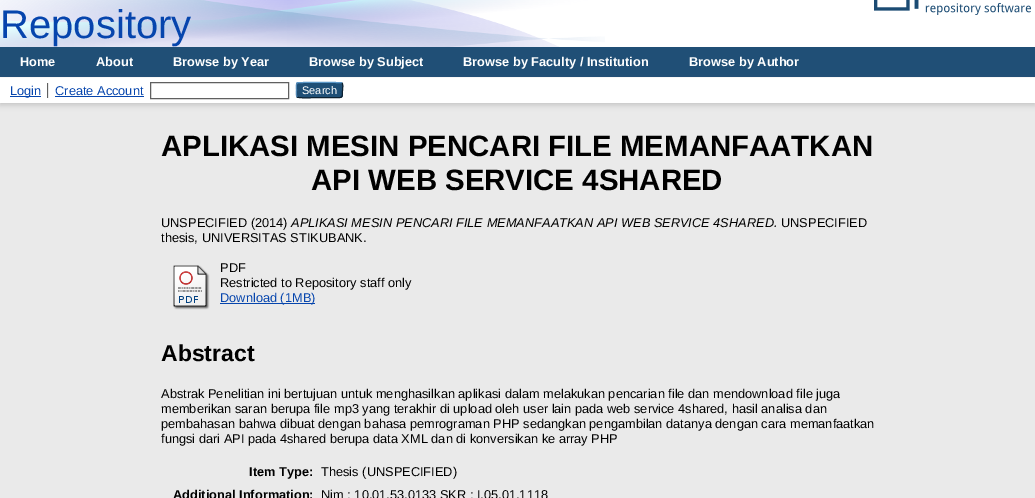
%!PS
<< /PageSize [1035 498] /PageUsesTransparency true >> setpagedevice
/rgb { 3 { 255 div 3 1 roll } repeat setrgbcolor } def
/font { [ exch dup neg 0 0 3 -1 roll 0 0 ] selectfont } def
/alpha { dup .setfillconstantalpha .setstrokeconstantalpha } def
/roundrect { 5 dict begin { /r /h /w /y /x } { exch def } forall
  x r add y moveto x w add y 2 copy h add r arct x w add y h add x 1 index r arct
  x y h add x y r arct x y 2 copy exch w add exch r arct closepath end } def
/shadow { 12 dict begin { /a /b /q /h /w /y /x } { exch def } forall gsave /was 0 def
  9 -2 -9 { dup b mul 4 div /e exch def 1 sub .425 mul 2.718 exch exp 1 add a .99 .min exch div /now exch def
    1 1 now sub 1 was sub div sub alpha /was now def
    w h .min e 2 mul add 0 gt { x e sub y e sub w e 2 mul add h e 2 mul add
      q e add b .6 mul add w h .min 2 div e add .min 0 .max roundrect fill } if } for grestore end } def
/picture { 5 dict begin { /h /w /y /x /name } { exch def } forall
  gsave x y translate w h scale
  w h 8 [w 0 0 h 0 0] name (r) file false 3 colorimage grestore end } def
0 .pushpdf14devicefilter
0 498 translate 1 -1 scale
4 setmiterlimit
234 234 234 rgb
0 0 1035 498 rectfill
255 255 255 rgb
0 0 1035 47 rectfill
(img/1.rgb) 0 0 605 47 picture
(img/2.rgb) 874 0 157 15 picture
32 79 118 rgb
0 47 1035 30 rectfill
255 255 255 rgb
0 77 1035 1 rectfill
100 100 100 rgb
0 80 1035 25 0 3 0.3 shadow
[
  [0 78 1035 25 255 255 255]
  [47 83 1 15 96 96 96]
  [10 96 31 1 6 69 173]
  [48 83 1 15 232 232 232]
  [55 96 89 1 6 69 173]
] { aload pop rgb rectfill } forall
96 96 96 rgb
150.5 82.5 138 16 rectstroke
31 79 118 rgb
296 82 47 16 3 roundrect fill
91 151 199 rgb
297 83 moveto 298.5 82 340.5 82 342 83 curveto stroke
13 33 49 rgb
342 83 moveto 343.5 85 342.5 88 342.5 90 curveto 342.5 99 342.5 97.5 333 97.5 curveto 319.5 97.5 lineto 316 97.5 299 98.5 297 97 curveto stroke
82 135 179 rgb
297 97 moveto 296 95.5 296.5 91.5 296.5 90 curveto 296.5 88.5 296 84.5 297 83 curveto stroke
(img/3.rgb) 173 265 37 45 picture
6 69 173 rgb
220 303 95 1 rectfill
/LiberationSans-Regular 40 font
0 38 moveto (Repository) show
/LiberationSans-Bold 12.8 font
255 255 255 rgb
[
  [(Home) 20 66]
  [(About) 96 66]
  [(Browse by Year) 173 66]
  [(Browse by Subject) 309 66]
  [(Browse by Faculty / Institution) 463 66]
  [(Browse by Author) 689 66]
] { aload pop moveto show } forall
/LiberationSans-Regular 12.8 font
6 69 173 rgb
10 95 moveto (Login) show
55 95 moveto (Create Account) show
/LiberationSans-Regular 11 font
255 255 255 rgb
302 94 moveto (Search) show
/LiberationSans-Bold 29.4 font
0 0 0 rgb
161 156 moveto (APLIKASI MESIN PENCARI FILE MEMANFAATKAN) show
311 190 moveto (API WEB SERVICE 4SHARED) show
/LiberationSans-Regular 12.8 font
161 227 moveto (UNSPECIFIED \(2014\)) show
/LiberationSans-Italic 12.8 font
291 227 moveto (APLIKASI MESIN PENCARI FILE MEMANFAATKAN API WEB SERVICE 4SHARED.) show
/LiberationSans-Regular 12.8 font
[
  [(UNSPECIFIED) 781 227]
  [(thesis, UNIVERSITAS STIKUBANK.) 161 242]
  [(PDF) 220 272]
  [(Restricted to Repository staff only) 220 287]
] { aload pop moveto show } forall
6 69 173 rgb
220 302 moveto (Download \(1MB\)) show
/LiberationSans-Bold 23 font
0 0 0 rgb
161 361 moveto (Abstract) show
/LiberationSans-Regular 12.8 font
[
  [(Abstrak Penelitian ini bertujuan untuk menghasilkan aplikasi dalam melakukan pencarian file dan mendownload file juga) 161 398]
  [(memberikan saran berupa file mp3 yang terakhir di upload oleh user lain pada web service 4shared, hasil analisa dan) 161 413]
  [(pembahasan bahwa dibuat dengan bahasa pemrograman PHP sedangkan pengambilan datanya dengan cara memanfaatkan) 161 428]
  [(fungsi dari API pada 4shared berupa data XML dan di konversikan ke array PHP) 161 443]
] { aload pop moveto show } forall
/LiberationSans-Bold 12.8 font
249 476 moveto (Item Type:) show
/LiberationSans-Regular 12.8 font
321 476 moveto (Thesis \(UNSPECIFIED\)) show
/LiberationSans-Bold 12.8 font
173 499 moveto (Additional Information:) show
/LiberationSans-Regular 12.8 font
321 499 moveto (Nim : 10.01.53.0133 SKR : I.05.01.1118) show
.poppdf14devicefilter showpage
